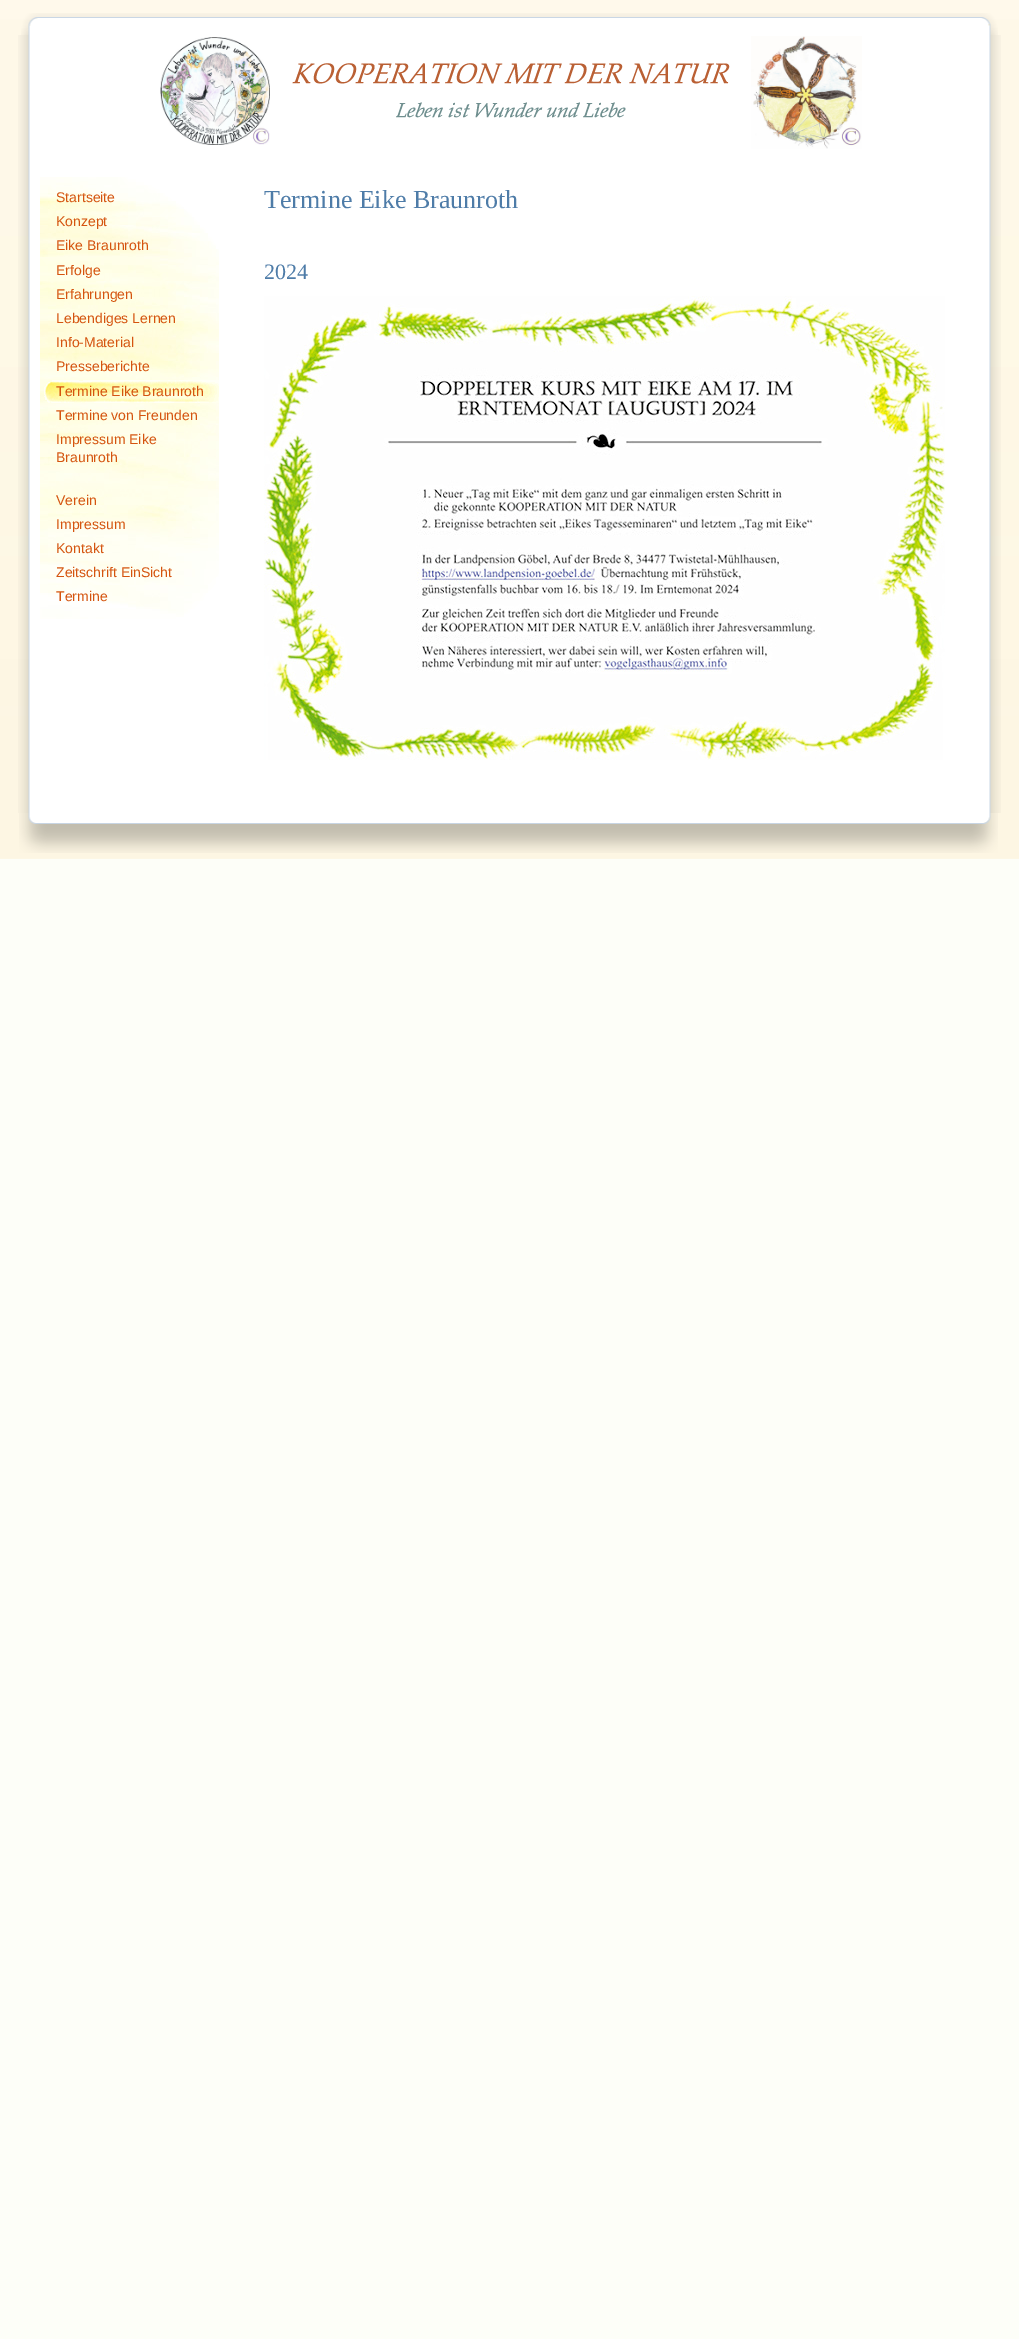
%!PS
<< /PageSize [1019 2339] >> setpagedevice
/rgb { 3 { 255 div 3 1 roll } repeat setrgbcolor } def
/font { [ exch dup neg 0 0 3 -1 roll 0 0 ] selectfont } def
/picture { 5 dict begin { /h /w /y /x /name } { exch def } forall
  gsave x y translate w h scale
  w h 8 [w 0 0 h 0 0] name (r) file false 3 colorimage grestore end } def
0 2339 translate 1 -1 scale
4 setmiterlimit
253 254 248 rgb
0 0 1019 2339 rectfill
(img/1.rgb) 0 0 1019 859 picture
(img/2.rgb) 21 13 977 22 picture
(img/3.rgb) 18 35 983 778 picture
(img/4.rgb) 160 37 110 108 picture
(img/5.rgb) 292 63 438 55 picture
(img/6.rgb) 751 36 111 113 picture
(img/7.rgb) 40 177 179 442 picture
(img/8.rgb) 44 380 175 23 picture
(img/9.rgb) 264 296 681 464 picture
(img/10.rgb) 19 813 979 40 picture
/LiberationSans-Regular 14 font
213 84 15 rgb
[
  [(Startseite) 56 202]
  [(Konzept) 56 226]
  [(Eike Braunroth) 56 250]
  [(Erfolge) 56 275]
  [(Erfahrungen) 56 299]
  [(Lebendiges Lernen) 56 323]
  [(Info-Material) 56 347]
  [(Presseberichte) 56 371]
  [(Termine Eike Braunroth) 56 396]
  [(Termine von Freunden) 56 420]
  [(Impressum Eike) 56 444]
  [(Braunroth) 56 462]
  [(Verein) 56 505]
  [(Impressum) 56 529]
  [(Kontakt) 56 553]
  [(Zeitschrift EinSicht) 56 577]
  [(Termine) 56 601]
] { aload pop moveto show } forall
/LiberationSerif-Regular 26 font
78 124 168 rgb
264 208 moveto (Termine Eike Braunroth) show
/LiberationSerif-Regular 22 font
264 279 moveto (2024) show
showpage
